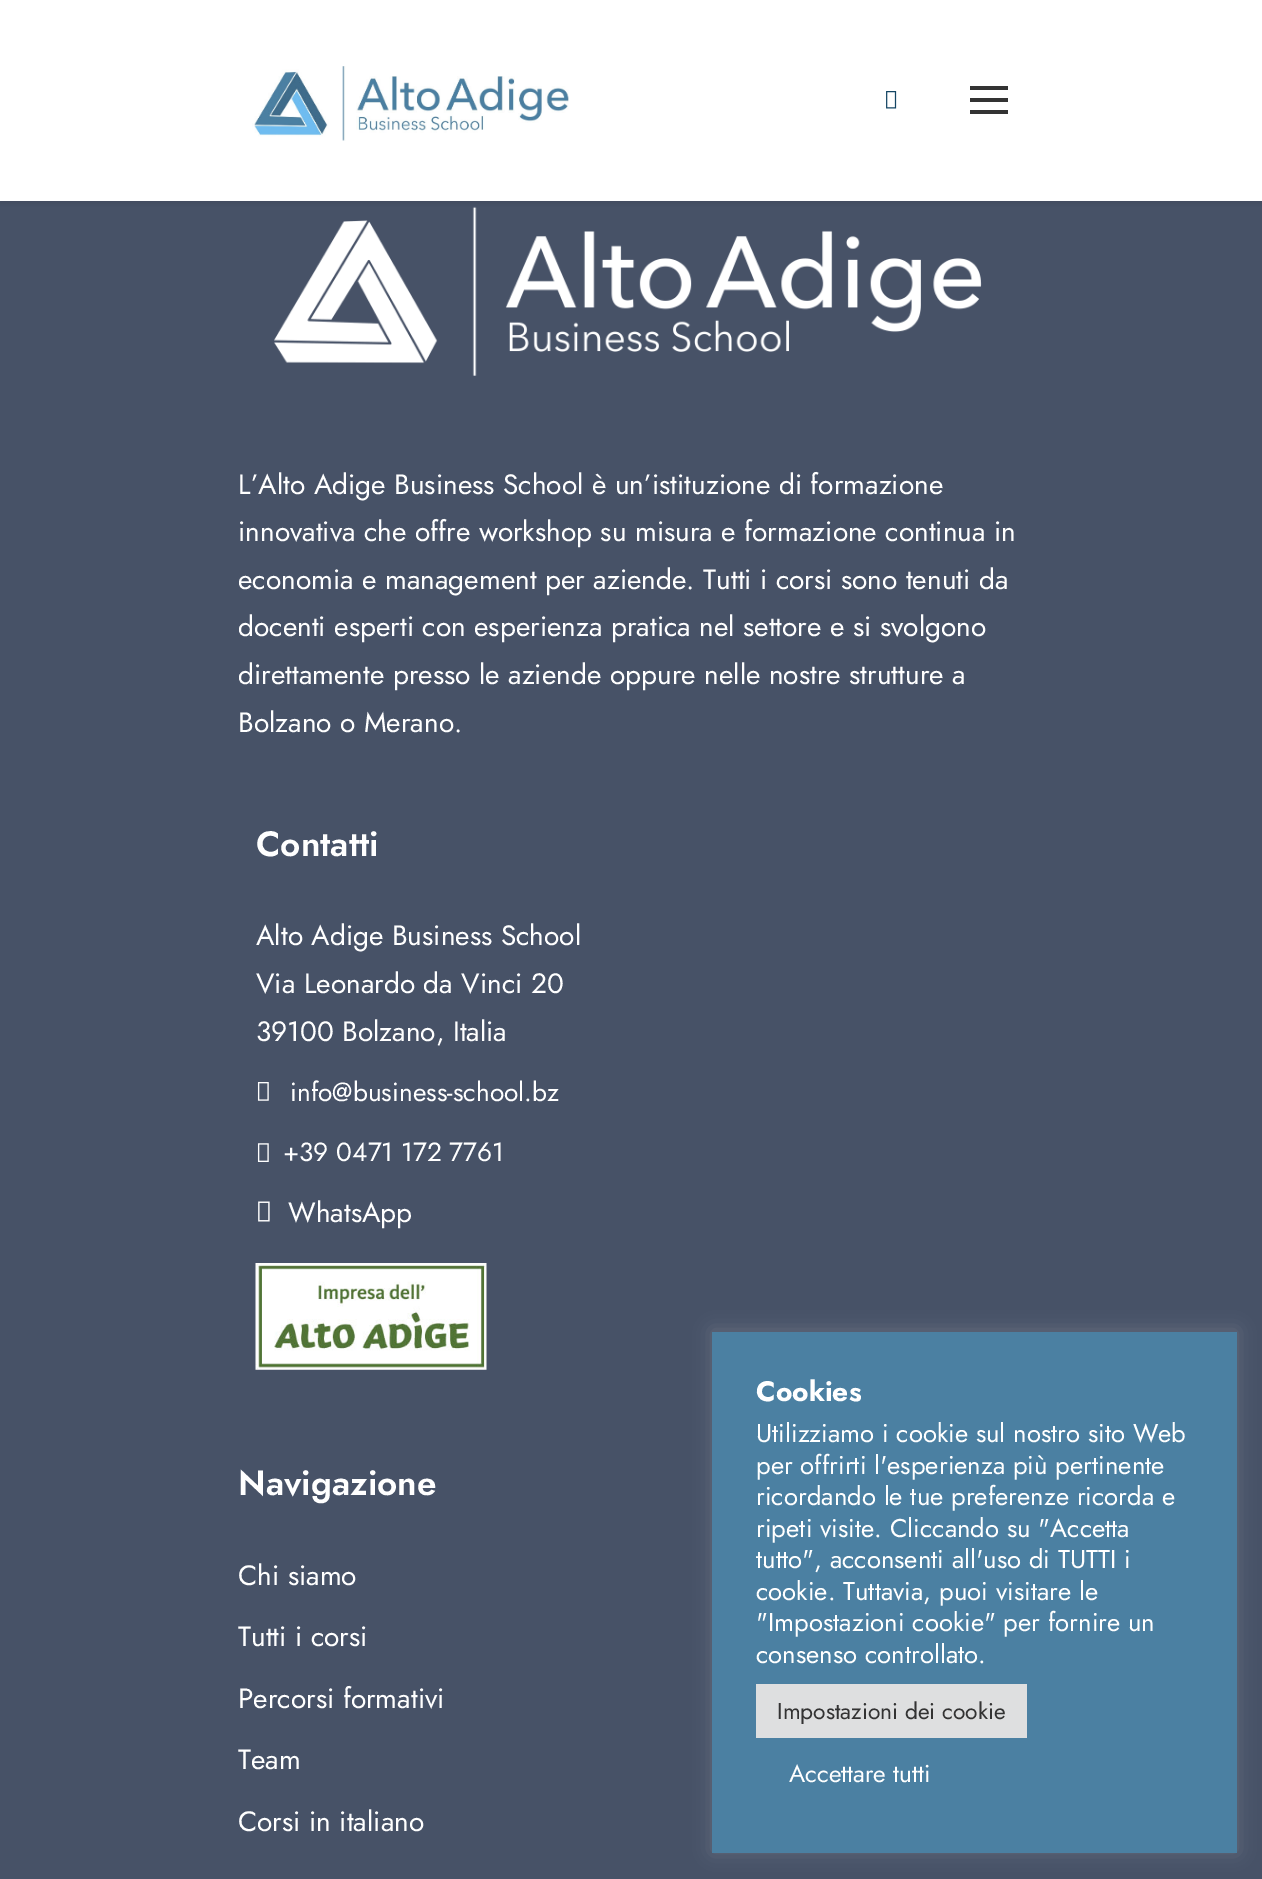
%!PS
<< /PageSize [1262 1879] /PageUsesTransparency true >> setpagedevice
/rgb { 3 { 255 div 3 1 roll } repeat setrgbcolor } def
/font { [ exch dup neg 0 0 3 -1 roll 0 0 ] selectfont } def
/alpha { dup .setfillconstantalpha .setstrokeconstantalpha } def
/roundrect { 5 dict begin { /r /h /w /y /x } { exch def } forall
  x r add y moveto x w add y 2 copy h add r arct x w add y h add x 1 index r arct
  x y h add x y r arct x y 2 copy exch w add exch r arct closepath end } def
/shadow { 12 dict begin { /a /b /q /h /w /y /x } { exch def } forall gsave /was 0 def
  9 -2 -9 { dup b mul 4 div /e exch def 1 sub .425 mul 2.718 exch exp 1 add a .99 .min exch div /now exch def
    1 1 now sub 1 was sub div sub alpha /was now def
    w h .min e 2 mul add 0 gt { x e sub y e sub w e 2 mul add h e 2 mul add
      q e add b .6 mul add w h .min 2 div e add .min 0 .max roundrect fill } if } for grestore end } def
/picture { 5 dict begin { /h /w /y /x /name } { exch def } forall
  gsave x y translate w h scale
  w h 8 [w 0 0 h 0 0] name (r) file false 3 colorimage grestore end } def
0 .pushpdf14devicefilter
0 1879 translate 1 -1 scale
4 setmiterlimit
71 82 103 rgb
0 0 1262 1879 rectfill
(img/3.rgb) 274 206 708 170 picture
0 0 0 rgb
0 2 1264 201 0 3.5 0.1 shadow
255 255 255 rgb
0 0 1262 201 rectfill
(img/1.rgb) 252 66 317 75 picture
(img/2.rgb) 886 91 11 18 picture
[
  [970 86 38 4 51 51 51]
  [970 98 38 4 51 51 51]
  [970 110 38 4 51 51 51]
] { aload pop rgb rectfill } forall
(img/4.rgb) 257 1082 12 19 picture
(img/5.rgb) 257 1143 12 19 picture
(img/6.rgb) 258 1201 12 21 picture
(img/7.rgb) 255 1263 232 107 picture
172 171 171 rgb
712 1330 525 522 0 9 0.3 shadow
75 128 162 rgb
712 1332 525 521 rectfill
222 223 224 rgb
756 1684 271 54 rectfill
/Jost-Regular 28 font
255 255 255 rgb
[
  [(L’Alto Adige Business School è un’istituzione di formazione) 238 494]
  [(innovativa che offre workshop su misura e formazione continua in) 238 541]
  [(economia e management per aziende. Tutti i corsi sono tenuti da) 238 589]
  [(docenti esperti con esperienza pratica nel settore e si svolgono) 238 636]
  [(direttamente presso le aziende oppure nelle nostre strutture a) 238 684]
  [(Bolzano o Merano.) 238 732]
] { aload pop moveto show } forall
/Jost-SemiBold 35 font
256 856 moveto (Contatti) show
/Jost-Regular 28 font
[
  [(Alto Adige Business School) 256 945]
  [(Via Leonardo da Vinci 20) 256 993]
  [(39100 Bolzano, Italia) 256 1041]
] { aload pop moveto show } forall
/Jost-Regular 26.25 font
290 1101 moveto (info@business-school.bz) show
283 1161 moveto (+39 0471 172 7761) show
/Jost-Regular 28 font
288 1222 moveto (WhatsApp) show
/Jost-SemiBold 35 font
238 1495 moveto (Navigazione) show
/Jost-Regular 28 font
[
  [(Chi siamo) 238 1585]
  [(Tutti i corsi) 238 1646]
  [(Percorsi formativi) 238 1708]
  [(Team) 238 1769]
  [(Corsi in italiano) 238 1831]
] { aload pop moveto show } forall
/Jost-Bold 28 font
756 1401 moveto (Cookies) show
/Jost-Regular 25.7 font
[
  [(Utilizziamo i cookie sul nostro sito Web) 756 1442]
  [(per offrirti l'esperienza più pertinente) 756 1474]
  [(ricordando le tue preferenze ricorda e) 756 1505]
  [(ripeti visite. Cliccando su "Accetta) 756 1537]
  [(tutto", acconsenti all'uso di TUTTI i) 756 1568]
  [(cookie. Tuttavia, puoi visitare le) 756 1600]
  [("Impostazioni cookie" per fornire un) 756 1631]
  [(consenso controllato.) 756 1663]
] { aload pop moveto show } forall
/Jost-Regular 22.75 font
51 51 51 rgb
777 1719 moveto (Impostazioni dei cookie) show
/Jost-Regular 24.5 font
255 255 255 rgb
789 1782 moveto (Accettare tutti) show
.poppdf14devicefilter showpage
